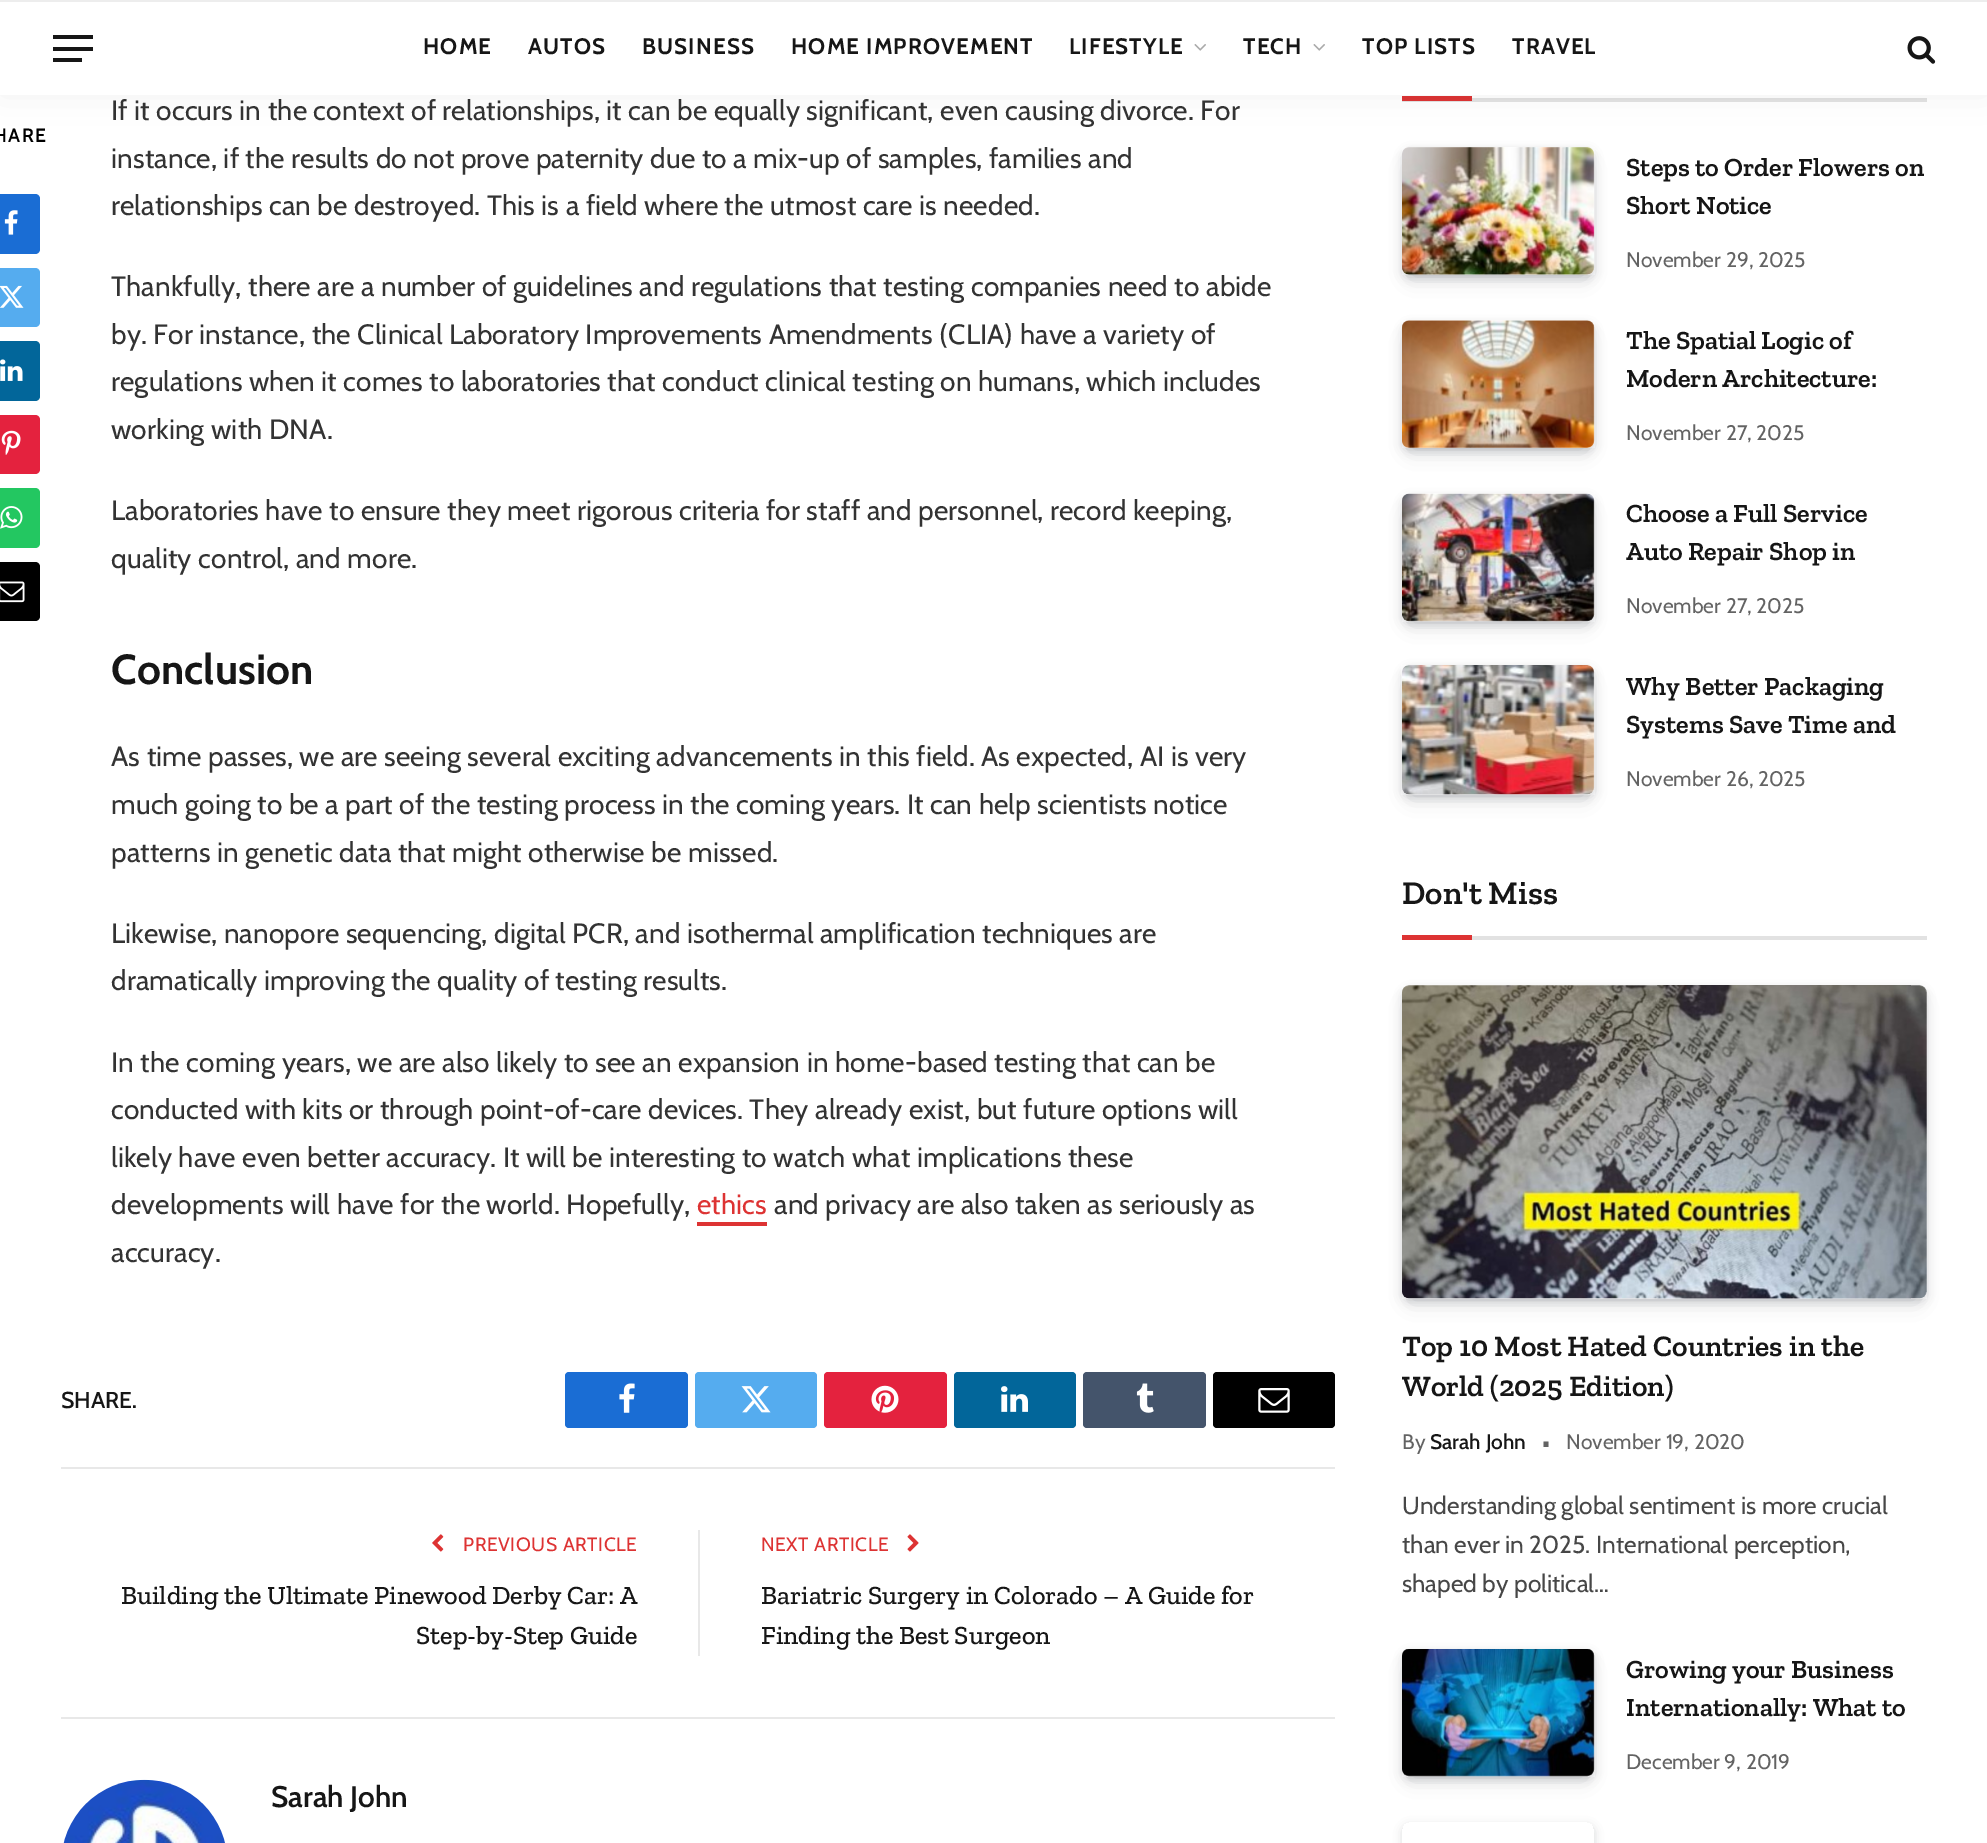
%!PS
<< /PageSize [1987 1843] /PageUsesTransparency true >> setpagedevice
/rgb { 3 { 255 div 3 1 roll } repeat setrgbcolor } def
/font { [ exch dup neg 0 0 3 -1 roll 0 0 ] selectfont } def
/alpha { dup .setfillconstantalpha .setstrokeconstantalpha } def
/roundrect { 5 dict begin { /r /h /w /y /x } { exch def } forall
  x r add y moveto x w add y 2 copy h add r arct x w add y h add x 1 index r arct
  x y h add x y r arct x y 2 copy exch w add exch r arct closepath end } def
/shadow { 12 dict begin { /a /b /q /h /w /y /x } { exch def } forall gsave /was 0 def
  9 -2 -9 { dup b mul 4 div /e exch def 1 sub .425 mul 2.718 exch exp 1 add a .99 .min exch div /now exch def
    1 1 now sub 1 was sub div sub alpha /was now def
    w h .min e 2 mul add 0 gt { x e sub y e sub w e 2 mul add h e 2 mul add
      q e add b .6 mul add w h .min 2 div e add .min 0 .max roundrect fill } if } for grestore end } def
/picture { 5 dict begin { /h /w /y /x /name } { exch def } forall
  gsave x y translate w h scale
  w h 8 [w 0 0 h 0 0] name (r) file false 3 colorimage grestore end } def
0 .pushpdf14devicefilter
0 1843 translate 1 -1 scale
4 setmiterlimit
255 255 255 rgb
0 0 1987 1843 rectfill
226 226 226 rgb
1402 98 525 4 rectfill
221 51 51 rgb
1402 96 70 5 rectfill
7 10 25 rgb
1412 168 172 107 0 10.5 0.2 shadow
1404 152 189 125 5 5 0.2 shadow
(img/18.rgb) 1402 147 193 128 picture
0 0 0 rgb
0 0 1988 95 0 17.5 0.05 shadow
[
  [0 2 1987 93 255 255 255]
  [0 0 1987 2 237 237 237]
  [53 58 29 4 22 22 22]
  [53 35 40 4 22 22 22]
  [53 47 40 4 22 22 22]
] { aload pop rgb rectfill } forall
(img/1.rgb) 1194 44 12 7 picture
(img/1.rgb) 1313 44 12 7 picture
(img/2.rgb) 1907 36 29 28 picture
26 109 212 rgb
0 194 moveto 35 194 lineto 38 194 40 196 40 199 curveto 40 249 lineto 40 252 38 254 35 254 curveto 0 254 lineto closepath fill
(img/3.rgb) 4 210 14 25 picture
85 172 239 rgb
0 268 moveto 35 268 lineto 38 268 40 270 40 273 curveto 40 322 lineto 40 325 38 327 35 327 curveto 0 327 lineto closepath fill
(img/4.rgb) 0 285 24 23 picture
2 102 154 rgb
0 341 moveto 35 341 lineto 38 341 40 343 40 346 curveto 40 396 lineto 40 399 38 401 35 401 curveto 0 401 lineto closepath fill
(img/5.rgb) 0 359 23 22 picture
228 34 62 rgb
0 415 moveto 35 415 lineto 38 415 40 417 40 420 curveto 40 469 lineto 40 472 38 474 35 474 curveto 0 474 lineto closepath fill
(img/6.rgb) 1 430 20 25 picture
35 199 97 rgb
0 488 moveto 35 488 lineto 38 488 40 490 40 493 curveto 40 543 lineto 40 546 38 548 35 548 curveto 0 548 lineto closepath fill
(img/7.rgb) 0 506 23 23 picture
0 0 0 rgb
0 562 moveto 35 562 lineto 38 562 40 564 40 567 curveto 40 616 lineto 40 619 38 621 35 621 curveto 0 621 lineto closepath fill
(img/8.rgb) 0 581 25 22 picture
221 51 51 rgb
697 1222 70 4 rectfill
26 109 212 rgb
565 1372 123 56 4 roundrect fill
(img/9.rgb) 619 1383 16 30 picture
85 172 239 rgb
695 1372 122 56 4 roundrect fill
(img/10.rgb) 741 1386 30 27 picture
228 34 62 rgb
824 1372 123 56 4 roundrect fill
(img/11.rgb) 871 1385 28 28 picture
2 102 154 rgb
954 1372 122 56 4 roundrect fill
(img/12.rgb) 1001 1386 27 26 picture
68 84 107 rgb
1083 1372 123 56 4 roundrect fill
(img/13.rgb) 1136 1383 18 30 picture
0 0 0 rgb
1213 1372 122 56 4 roundrect fill
(img/14.rgb) 1258 1388 32 25 picture
232 232 232 rgb
61 1467 1274 2 rectfill
(img/15.rgb) 432 1534 12 18 picture
698 1530 2 126 rectfill
(img/16.rgb) 907 1534 12 18 picture
61 1717 1274 2 rectfill
(img/17.rgb) 63 1779 162 64 picture
7 10 25 rgb
1412 341 172 107 0 10.5 0.2 shadow
1404 326 189 124 5 5 0.2 shadow
(img/19.rgb) 1402 320 193 128 picture
1412 515 172 106 0 10.5 0.2 shadow
1404 499 189 124 5 5 0.2 shadow
(img/20.rgb) 1402 493 193 129 picture
1412 686 172 109 0 10.5 0.2 shadow
1404 670 189 126 5 5 0.2 shadow
(img/21.rgb) 1401 665 194 130 picture
226 226 226 rgb
1472 936 455 4 rectfill
221 51 51 rgb
1402 935 70 5 rectfill
7 10 25 rgb
1412 1006 504 293 0 10.5 0.2 shadow
1404 991 521 309 5 5 0.2 shadow
(img/22.rgb) 1402 985 525 314 picture
1412 1670 172 106 0 10.5 0.2 shadow
1404 1654 189 124 5 5 0.2 shadow
(img/23.rgb) 1402 1649 193 128 picture
gsave
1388 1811 moveto 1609 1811 lineto 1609 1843 lineto 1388 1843 lineto closepath 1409 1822 moveto 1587 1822 lineto 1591 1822 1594 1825 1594 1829 curveto 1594 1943 lineto 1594 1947 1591 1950 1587 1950 curveto 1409 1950 lineto 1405 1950 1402 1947 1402 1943 curveto 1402 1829 lineto 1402 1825 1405 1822 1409 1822 curveto closepath eoclip newpath
1404 1827 189 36 5 5 0.2 shadow
grestore
/Cabin-Bold 22.4 font
22 22 22 rgb
423 54 moveto 1.1 0 (HOME) ashow
528 54 moveto 1.1 0 (AUTOS) ashow
642 54 moveto 1.1 0 (BUSINESS) ashow
791 54 moveto 1.1 0 (HOME IMPROVEMENT) ashow
1069 54 moveto 1.1 0 (LIFESTYLE) ashow
1243 54 moveto 1.1 0 (TECH) ashow
1362 54 moveto 1.1 0 (TOP LISTS) ashow
1512 54 moveto 1.1 0 (TRAVEL) ashow
/Cabin-SemiBold 19.25 font
0 0 0 rgb
-7 142 moveto 1.5 0 (HARE) ashow
/Cabin-Regular 28 font
51 51 51 rgb
111 120 moveto 0.14 0 (If it occurs in the context of relationships, it can be equally significant, even causing divorce. For) ashow
111 168 moveto 0.14 0 (instance, if the results do not prove paternity due to a mix-up of samples, families and) ashow
111 215 moveto 0.14 0 (relationships can be destroyed. This is a field where the utmost care is needed.) ashow
111 296 moveto 0.14 0 (Thankfully, there are a number of guidelines and regulations that testing companies need to abide) ashow
111 344 moveto 0.14 0 (by. For instance, the Clinical Laboratory Improvements Amendments \(CLIA\) have a variety of) ashow
111 391 moveto 0.14 0 (regulations when it comes to laboratories that conduct clinical testing on humans, which includes) ashow
111 439 moveto 0.14 0 (working with DNA.) ashow
111 520 moveto 0.14 0 (Laboratories have to ensure they meet rigorous criteria for staff and personnel, record keeping,) ashow
111 568 moveto 0.14 0 (quality control, and more.) ashow
/Cabin-Bold 42 font
22 22 22 rgb
111 684 moveto 0.14 0 (Conclusion) ashow
/Cabin-Regular 28 font
51 51 51 rgb
111 766 moveto 0.14 0 (As time passes, we are seeing several exciting advancements in this field. As expected, AI is very) ashow
111 814 moveto 0.14 0 (much going to be a part of the testing process in the coming years. It can help scientists notice) ashow
111 862 moveto 0.14 0 (patterns in genetic data that might otherwise be missed.) ashow
111 943 moveto 0.14 0 (Likewise, nanopore sequencing, digital PCR, and isothermal amplification techniques are) ashow
111 990 moveto 0.14 0 (dramatically improving the quality of testing results.) ashow
111 1072 moveto 0.14 0 (In the coming years, we are also likely to see an expansion in home-based testing that can be) ashow
111 1119 moveto 0.14 0 (conducted with kits or through point-of-care devices. They already exist, but future options will) ashow
111 1167 moveto 0.14 0 (likely have even better accuracy. It will be interesting to watch what implications these) ashow
111 1214 moveto 0.14 0 (developments will have for the world. Hopefully,) ashow
221 51 51 rgb
697 1214 moveto 0.14 0 (ethics) ashow
51 51 51 rgb
774 1214 moveto 0.14 0 (and privacy are also taken as seriously as) ashow
111 1262 moveto 0.14 0 (accuracy.) ashow
/Cabin-Medium 23 font
22 22 22 rgb
61 1408 moveto (SHARE.) show
/Cabin-Regular 19.25 font
221 51 51 rgb
463 1551 moveto 0.6 0 (PREVIOUS ARTICLE) ashow
/ZillaSlab-Medium 26.25 font
22 22 22 rgb
121 1604 moveto (Building the Ultimate Pinewood Derby Car: A) show
416 1644 moveto (Step-by-Step Guide) show
/Cabin-Regular 19.25 font
221 51 51 rgb
761 1551 moveto 0.6 0 (NEXT ARTICLE) ashow
/ZillaSlab-Medium 26.25 font
22 22 22 rgb
761 1604 moveto (Bariatric Surgery in Colorado – A Guide for) show
761 1644 moveto (Finding the Best Surgeon) show
/Cabin-SemiBold 29.75 font
271 1807 moveto (Sarah John) show
/ZillaSlab-SemiBold 26.25 font
1626 176 moveto (Steps to Order Flowers on) show
1626 214 moveto (Short Notice) show
/Cabin-Regular 21 font
99 99 99 rgb
1626 267 moveto (November 29, 2025) show
/ZillaSlab-SemiBold 26.25 font
22 22 22 rgb
1626 349 moveto (The Spatial Logic of) show
1626 387 moveto (Modern Architecture:) show
/Cabin-Regular 21 font
99 99 99 rgb
1626 440 moveto (November 27, 2025) show
/ZillaSlab-SemiBold 26.25 font
22 22 22 rgb
1626 522 moveto (Choose a Full Service) show
1626 560 moveto (Auto Repair Shop in) show
/Cabin-Regular 21 font
99 99 99 rgb
1626 613 moveto (November 27, 2025) show
gsave
1626 669 301 75 rectclip
/ZillaSlab-SemiBold 26.25 font
22 22 22 rgb
1626 695 moveto (Why Better Packaging) show
grestore
/ZillaSlab-SemiBold 26.25 font
22 22 22 rgb
1626 733 moveto (Systems Save Time and) show
/Cabin-Regular 21 font
99 99 99 rgb
1626 786 moveto (November 26, 2025) show
/ZillaSlab-SemiBold 33.25 font
22 22 22 rgb
1402 904 moveto (Don't Miss) show
/ZillaSlab-SemiBold 29.75 font
1402 1356 moveto (Top 10 Most Hated Countries in the) show
gsave
1402 1327 525 80 rectclip
1402 1396 moveto (World \(2025 Edition\)) show
grestore
/Cabin-Regular 21 font
99 99 99 rgb
1402 1449 moveto (By) show
/Cabin-Medium 21 font
22 22 22 rgb
1430 1449 moveto (Sarah John) show
/Cabin-Regular 42 font
99 99 99 rgb
1541 1456 moveto (·) show
/Cabin-Regular 21 font
1566 1449 moveto (November 19, 2020) show
/Cabin-Regular 24.5 font
71 71 71 rgb
[
  [(Understanding global sentiment is more crucial) 1402 1514]
  [(than ever in 2025. International perception,) 1402 1553]
  [(shaped by political…) 1402 1592]
] { aload pop moveto show } forall
/ZillaSlab-SemiBold 26.25 font
22 22 22 rgb
1626 1678 moveto (Growing your Business) show
1626 1716 moveto (Internationally: What to) show
/Cabin-Regular 21 font
99 99 99 rgb
1626 1769 moveto (December 9, 2019) show
.poppdf14devicefilter showpage
